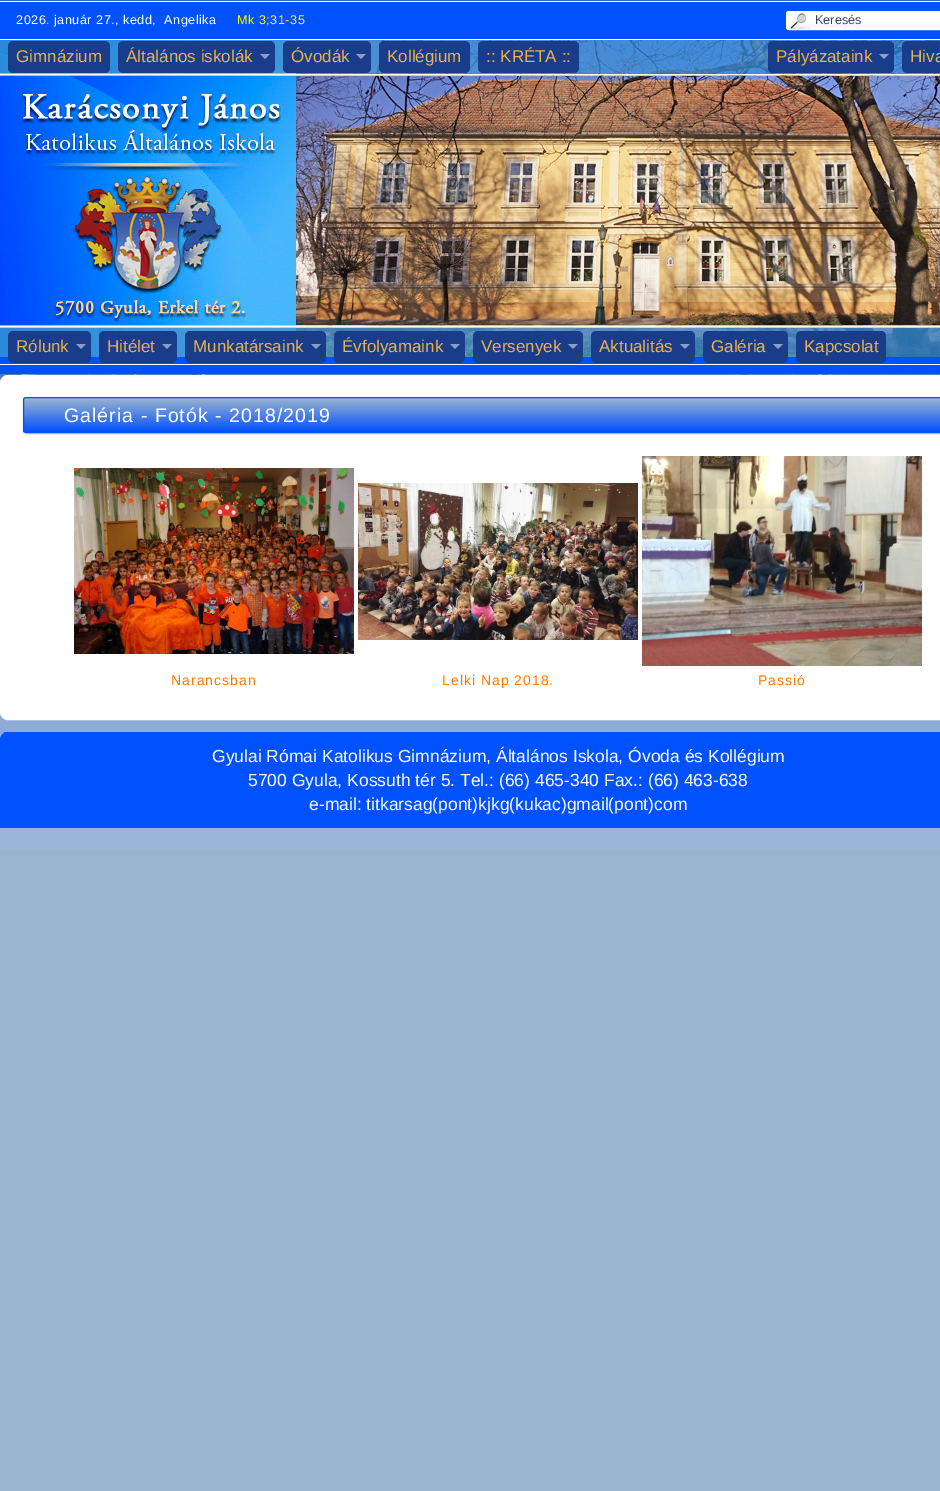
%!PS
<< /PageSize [940 1491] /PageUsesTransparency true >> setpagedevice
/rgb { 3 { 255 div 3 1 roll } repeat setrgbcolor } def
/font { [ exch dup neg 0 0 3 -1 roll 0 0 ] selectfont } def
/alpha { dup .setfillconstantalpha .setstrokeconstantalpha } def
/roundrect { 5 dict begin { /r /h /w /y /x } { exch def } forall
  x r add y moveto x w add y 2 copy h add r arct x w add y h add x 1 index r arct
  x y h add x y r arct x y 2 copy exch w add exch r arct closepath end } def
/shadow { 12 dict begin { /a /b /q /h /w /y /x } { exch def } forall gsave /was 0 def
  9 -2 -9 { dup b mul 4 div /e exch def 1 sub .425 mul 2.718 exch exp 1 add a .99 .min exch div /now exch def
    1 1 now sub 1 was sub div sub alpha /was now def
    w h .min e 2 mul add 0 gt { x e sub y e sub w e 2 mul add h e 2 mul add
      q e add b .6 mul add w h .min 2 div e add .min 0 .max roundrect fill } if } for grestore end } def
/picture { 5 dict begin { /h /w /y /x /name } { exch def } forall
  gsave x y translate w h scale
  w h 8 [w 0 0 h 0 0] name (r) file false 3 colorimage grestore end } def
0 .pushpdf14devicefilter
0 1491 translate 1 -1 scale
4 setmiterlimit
155 180 205 rgb
0 0 940 1491 rectfill
(img/1.rgb) 0 0 940 850 picture
(img/2.rgb) 0 374 940 9 picture
[
  [0 2 940 37 0 81 255]
  [0 1 940 1 255 255 255]
  [0 39 940 1 255 255 255]
] { aload pop rgb rectfill } forall
786 11 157 19 3 roundrect fill
(img/3.rgb) 790 13 20 16 picture
786.5 11.5 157 18 2.5 roundrect stroke
0 81 255 rgb
0 357 940 7 rectfill
255 255 255 rgb
0 364 940 1 rectfill
(img/4.rgb) 0 40 940 317 picture
25 61 139 rgb
8 41 102 32 5 roundrect fill
118 41 157 32 5 roundrect fill
140 158 197 rgb
260 54 moveto 270 54 lineto 265 59 lineto closepath fill
25 61 139 rgb
283 41 88 32 5 roundrect fill
140 158 197 rgb
356 54 moveto 366 54 lineto 361 59 lineto closepath fill
25 61 139 rgb
379 41 91 32 5 roundrect fill
478 41 101 32 5 roundrect fill
768 41 126 32 5 roundrect fill
140 158 197 rgb
879 54 moveto 889 54 lineto 884 59 lineto closepath fill
25 61 139 rgb
902 41 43 32 5 roundrect fill
8 331 83 32 5 roundrect fill
140 158 197 rgb
76 344 moveto 86 344 lineto 81 349 lineto closepath fill
25 61 139 rgb
99 331 78 32 5 roundrect fill
140 158 197 rgb
162 344 moveto 172 344 lineto 167 349 lineto closepath fill
25 61 139 rgb
185 331 141 32 5 roundrect fill
140 158 197 rgb
311 344 moveto 321 344 lineto 316 349 lineto closepath fill
25 61 139 rgb
334 331 131 32 5 roundrect fill
140 158 197 rgb
450 344 moveto 460 344 lineto 455 349 lineto closepath fill
25 61 139 rgb
473 331 110 32 5 roundrect fill
140 158 197 rgb
568 344 moveto 578 344 lineto 573 349 lineto closepath fill
25 61 139 rgb
591 331 104 32 5 roundrect fill
140 158 197 rgb
680 344 moveto 690 344 lineto 685 349 lineto closepath fill
25 61 139 rgb
703 331 85 32 5 roundrect fill
140 158 197 rgb
773 344 moveto 783 344 lineto 778 349 lineto closepath fill
25 61 139 rgb
796 331 90 32 5 roundrect fill
0 81 255 rgb
0 365 940 9 rectfill
255 255 255 rgb
0.5 375.5 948 344 7.5 roundrect gsave fill grestore
stroke
0 0 0 rgb
23 398 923 36 3 1 0.2 shadow
gsave
23 397 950 36 3 roundrect clip newpath
gsave 23 398 moveto 940 398 lineto 940 432 lineto 23 432 lineto closepath clip newpath
<< /ShadingType 2 /ColorSpace /DeviceRGB /Coords [498 398 498 432] /Extend [true true] /Function << /FunctionType 2 /Domain [0 1] /C0 [0.608 0.706 0.804] /C1 [0 0.318 1] /N 1 >> >> shfill grestore
grestore
0 81 255 rgb
23.5 397.5 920 35 2.5 roundrect stroke
(img/5.rgb) 74 468 280 186 picture
(img/6.rgb) 358 483 280 157 picture
(img/7.rgb) 642 456 280 210 picture
8 732 moveto 940 732 lineto 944.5 732 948 735.5 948 740 curveto 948 828 lineto 0 828 lineto 0 740 lineto 0 735.5 3.5 732 8 732 curveto closepath fill
4 732 4 1 rectfill
/LiberationSans-Regular 12.6 font
255 255 255 rgb
16 24 moveto 0.5 0 (2026. január 27., kedd,  Angelika) ashow
255 246 0 rgb
237 24 moveto 0.5 0 (Mk 3;31-35) ashow
59 67 103 rgb
815 24 moveto (Keresés) show
/LiberationSans-Regular 17 font
236 177 75 rgb
[
  [(Gimnázium) 16 62]
  [(Általános iskolák) 126 62]
  [(Óvodák) 291 62]
  [(Kollégium) 387 62]
  [(:: KRÉTA ::) 486 62]
  [(Pályázataink) 776 62]
  [(Hiva) 910 62]
  [(Rólunk) 16 352]
  [(Hitélet) 107 352]
  [(Munkatársaink) 193 352]
  [(Évfolyamaink) 342 352]
  [(Versenyek) 481 352]
  [(Aktualitás) 599 352]
  [(Galéria) 711 352]
  [(Kapcsolat) 804 352]
] { aload pop moveto show } forall
/LiberationSans-Regular 19.6 font
255 255 255 rgb
64 422 moveto 1 0 (Galéria - Fotók - 2018/2019) ashow
/LiberationSans-Regular 14 font
255 120 0 rgb
171 685 moveto 1 0 (Narancsban) ashow
442 685 moveto 1 0 (Lelki Nap 2018.) ashow
758 685 moveto 1 0 (Passió) ashow
/LiberationSans-Regular 17.5 font
255 255 255 rgb
[
  [(Gyulai Római Katolikus Gimnázium, Általános Iskola, Óvoda és Kollégium) 212 762]
  [(5700 Gyula, Kossuth tér 5. Tel.: \(66\) 465-340 Fax.: \(66\) 463-638) 248 786]
  [(e-mail: titkarsag\(pont\)kjkg\(kukac\)gmail\(pont\)com) 309 810]
] { aload pop moveto show } forall
.poppdf14devicefilter showpage
